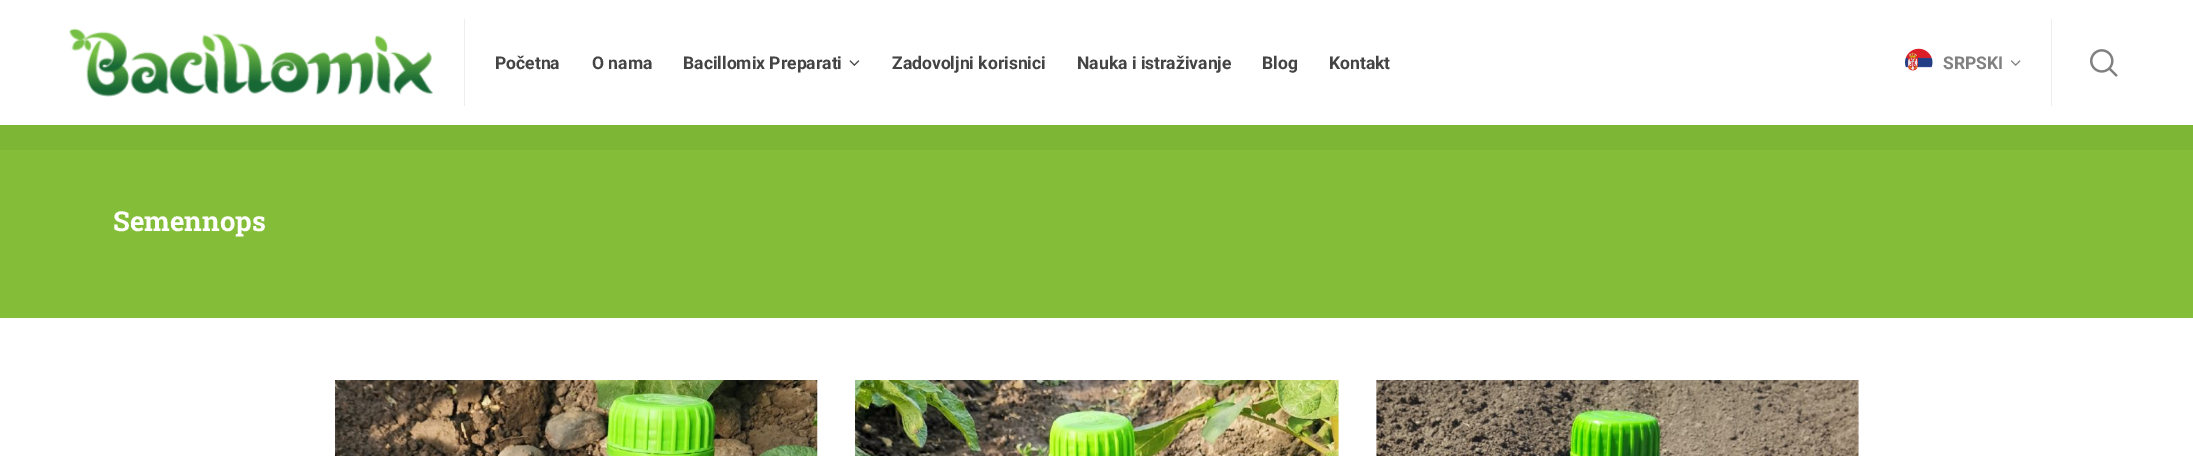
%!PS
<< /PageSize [2193 456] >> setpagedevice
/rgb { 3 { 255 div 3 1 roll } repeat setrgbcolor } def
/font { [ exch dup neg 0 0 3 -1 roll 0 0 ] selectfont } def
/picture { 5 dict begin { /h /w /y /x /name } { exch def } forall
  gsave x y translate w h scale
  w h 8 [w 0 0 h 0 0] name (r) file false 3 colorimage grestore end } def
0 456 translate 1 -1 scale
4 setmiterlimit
255 255 255 rgb
0 0 2193 456 rectfill
237 237 237 rgb
464 19 1 87 rectfill
(img/1.rgb) 69 28 364 69 picture
(img/2.rgb) 849 60 11 6 picture
2051 19 1 87 rectfill
(img/3.rgb) 1905 48 28 23 picture
(img/4.rgb) 2010 60 11 6 picture
(img/5.rgb) 2090 49 28 28 picture
132 190 56 rgb
0 150 2193 168 rectfill
125 181 53 rgb
0 125 2193 25 rectfill
(img/6.rgb) 335 380 483 76 picture
(img/7.rgb) 855 380 484 76 picture
(img/8.rgb) 1376 380 483 76 picture
/Roboto-Bold 17.5 font
68 68 68 rgb
[
  [(Početna) 495 69]
  [(O nama) 592 69]
  [(Bacillomix Preparati) 683 69]
  [(Zadovoljni korisnici) 892 69]
  [(Nauka i istraživanje) 1077 69]
  [(Blog) 1262 69]
  [(Kontakt) 1329 69]
] { aload pop moveto show } forall
128 128 128 rgb
1943 69 moveto (SRPSKI) show
/RobotoSlab-Bold 27.5 font
255 255 255 rgb
113 231 moveto (Semennops) show
showpage
